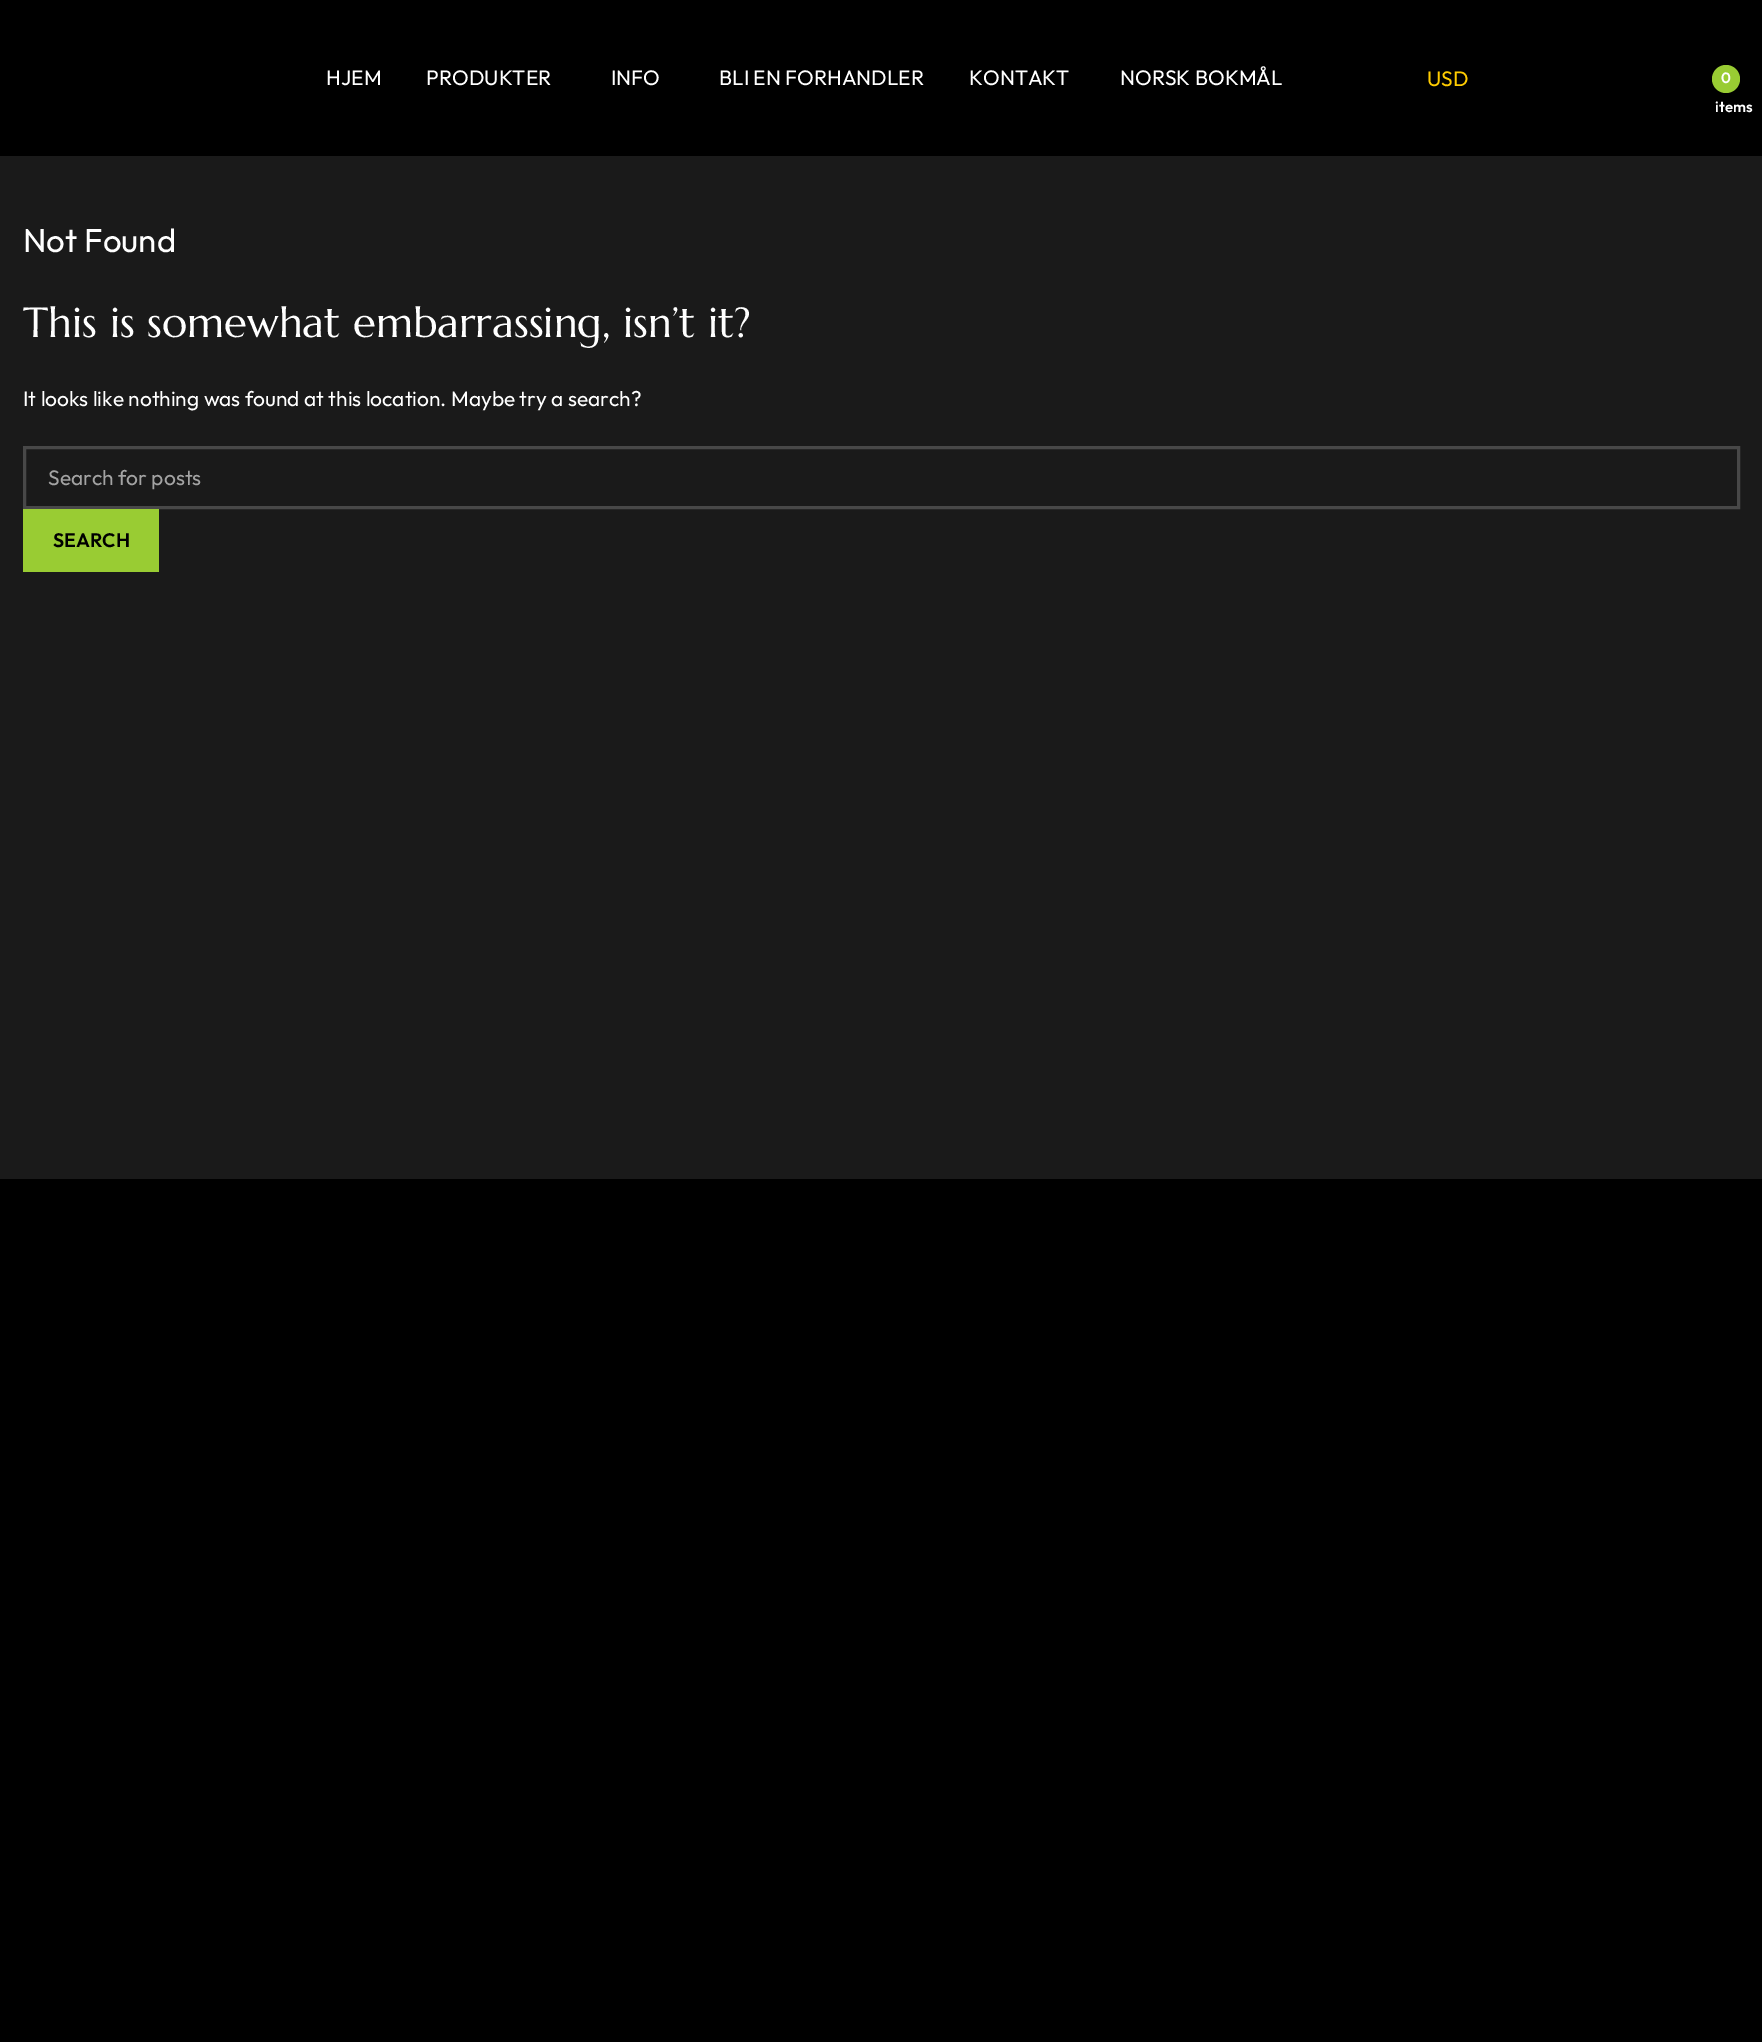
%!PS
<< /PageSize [1762 2042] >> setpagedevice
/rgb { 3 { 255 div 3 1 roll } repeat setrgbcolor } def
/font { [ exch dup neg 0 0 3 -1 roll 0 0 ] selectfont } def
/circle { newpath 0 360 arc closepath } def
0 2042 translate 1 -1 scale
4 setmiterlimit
26 26 26 rgb
0 0 1762 2042 rectfill
0 0 0 rgb
0 0 1762 156 rectfill
153 204 51 rgb
1726 79 14 circle fill
72 72 72 rgb
3 setlinewidth
24.5 447.5 1714 60 rectstroke
153 204 51 rgb
23 509 136 63 rectfill
0 0 0 rgb
0 1179 1762 863 rectfill
/Outfit-Regular 21 font
255 255 255 rgb
[
  [(HJEM) 326 85]
  [(PRODUKTER) 426 85]
  [(INFO) 611 85]
  [(BLI EN FORHANDLER) 719 85]
  [(KONTAKT) 969 85]
  [(NORSK BOKMÅL) 1120 85]
] { aload pop moveto show } forall
255 204 0 rgb
1427 86 moveto (USD) show
/Outfit-SemiBold 15 font
255 255 255 rgb
1721 83 moveto (0) show
1715 112 moveto (items) show
/Outfit-Regular 33 font
23 252 moveto (Not Found) show
/Marcellus-Regular 42 font
23 337 moveto (This is somewhat embarrassing, isn’t it?) show
/Outfit-Regular 21 font
23 406 moveto (It looks like nothing was found at this location. Maybe try a search?) show
163 163 163 rgb
48 485 moveto (Search for posts) show
/Outfit-SemiBold 19.5 font
0 0 0 rgb
53 547 moveto (SEARCH) show
showpage
